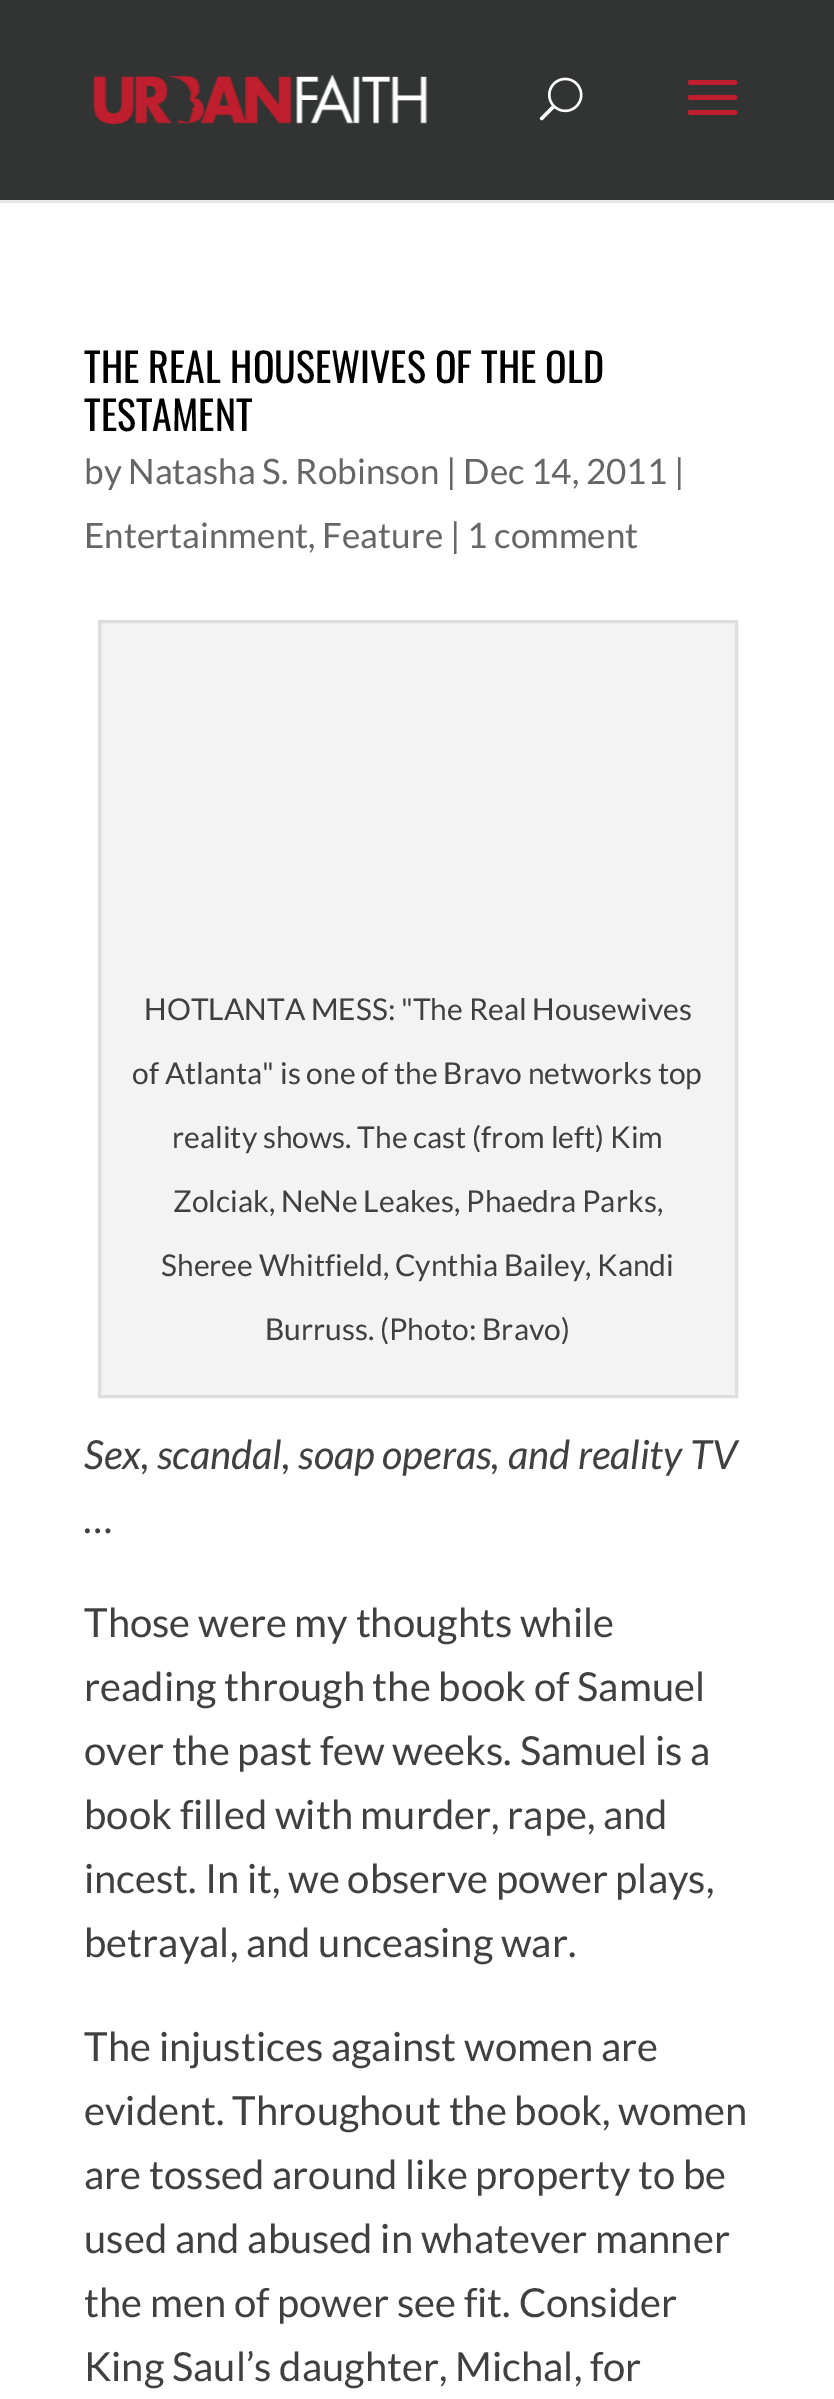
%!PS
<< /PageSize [834 2399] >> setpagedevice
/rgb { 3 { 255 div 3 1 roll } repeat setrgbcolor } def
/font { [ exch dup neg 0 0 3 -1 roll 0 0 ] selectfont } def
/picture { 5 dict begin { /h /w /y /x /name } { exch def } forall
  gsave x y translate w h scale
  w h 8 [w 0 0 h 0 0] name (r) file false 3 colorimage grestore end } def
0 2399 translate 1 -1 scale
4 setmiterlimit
255 255 255 rgb
0 0 834 2399 rectfill
230 230 230 rgb
0 200 834 3 rectfill
49 52 50 rgb
0 0 834 200 rectfill
(img/1.rgb) 93 75 335 50 picture
(img/2.rgb) 539 77 44 44 picture
(img/3.rgb) 687 80 51 35 picture
243 243 243 rgb
99.5 621.5 moveto 736.5 621.5 lineto 736.5 1396.5 lineto 99.5 1396.5 lineto closepath gsave fill grestore
221 221 221 rgb
3 setlinewidth
stroke
/Oswald-Regular 40 font
0 0 0 rgb
84 383 moveto (THE REAL HOUSEWIVES OF THE OLD) show
84 431 moveto (TESTAMENT) show
/Lato-Regular 35 font
102 102 102 rgb
84 484 moveto (by Natasha S. Robinson | Dec 14, 2011 |) show
84 548 moveto (Entertainment, Feature | 1 comment) show
/Lato-Regular 30 font
64 64 64 rgb
[
  [(HOTLANTA MESS: "The Real Housewives) 144 1020]
  [(of Atlanta" is one of the Bravo networks top) 132 1084]
  [(reality shows. The cast \(from left\) Kim) 172 1148]
  [(Zolciak, NeNe Leakes, Phaedra Parks,) 173 1212]
  [(Sheree Whitfield, Cynthia Bailey, Kandi) 161 1276]
  [(Burruss. \(Photo: Bravo\)) 265 1340]
] { aload pop moveto show } forall
/Lato-Italic 40 font
84 1469 moveto (Sex, scandal, soap operas, and reality TV) show
84 1533 moveto (…) show
/Lato-Regular 40 font
[
  [(Those were my thoughts while) 84 1637]
  [(reading through the book of Samuel) 84 1701]
  [(over the past few weeks. Samuel is a) 84 1765]
  [(book filled with murder, rape, and) 84 1829]
  [(incest. In it, we observe power plays,) 84 1893]
  [(betrayal, and unceasing war.) 84 1957]
  [(The injustices against women are) 84 2061]
  [(evident. Throughout the book, women) 84 2125]
  [(are tossed around like property to be) 84 2189]
  [(used and abused in whatever manner) 84 2253]
  [(the men of power see fit. Consider) 84 2317]
  [(King Saul’s daughter, Michal, for) 84 2381]
] { aload pop moveto show } forall
showpage
